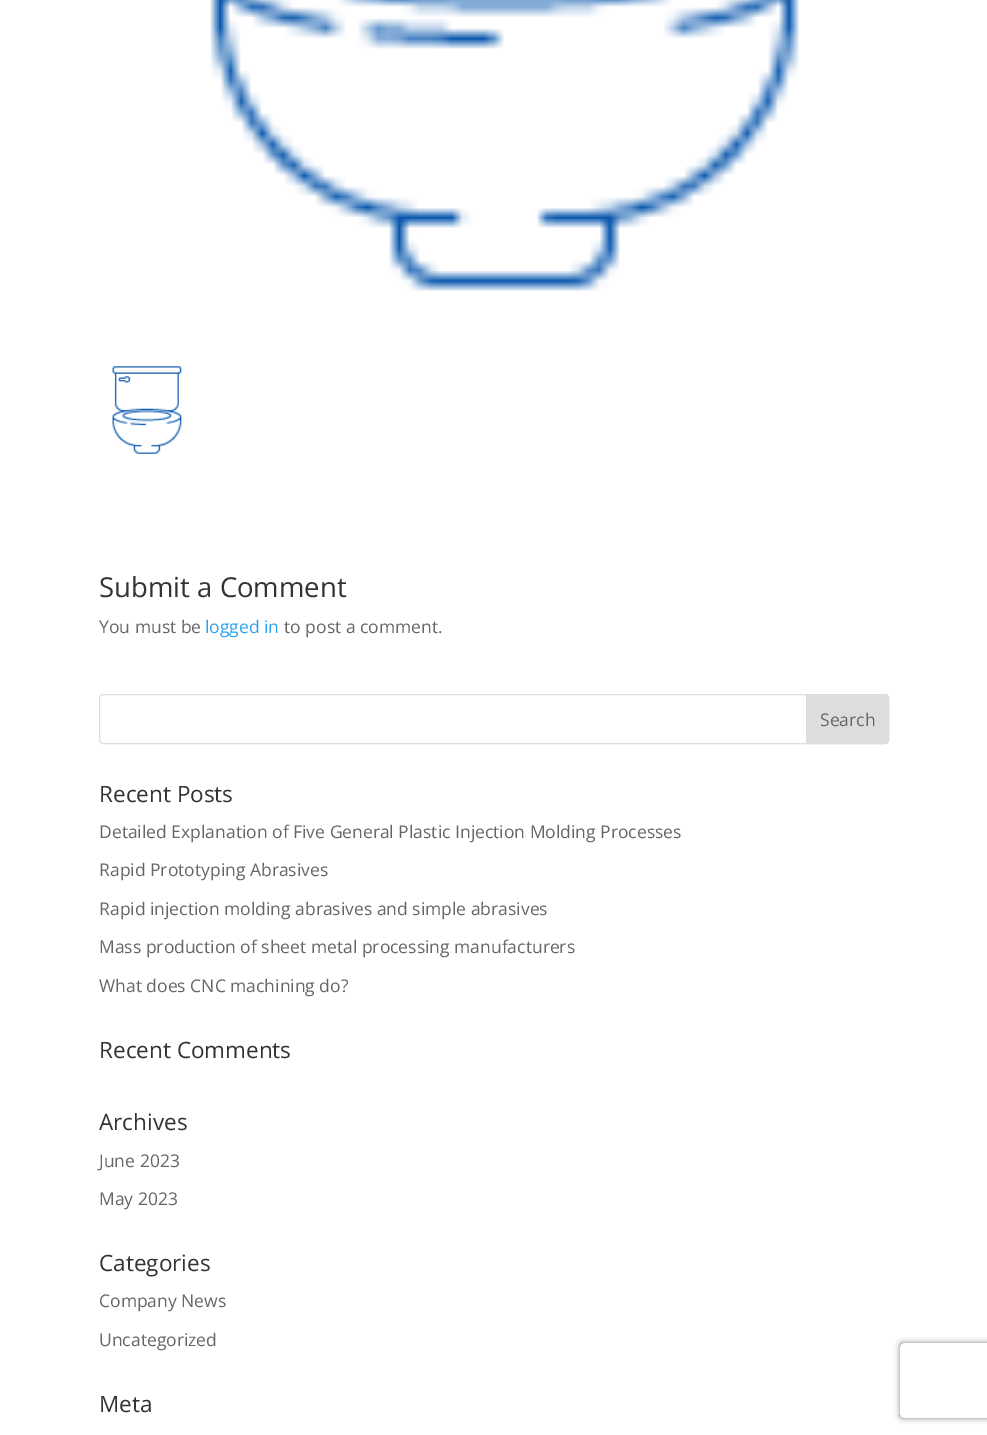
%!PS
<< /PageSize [987 1435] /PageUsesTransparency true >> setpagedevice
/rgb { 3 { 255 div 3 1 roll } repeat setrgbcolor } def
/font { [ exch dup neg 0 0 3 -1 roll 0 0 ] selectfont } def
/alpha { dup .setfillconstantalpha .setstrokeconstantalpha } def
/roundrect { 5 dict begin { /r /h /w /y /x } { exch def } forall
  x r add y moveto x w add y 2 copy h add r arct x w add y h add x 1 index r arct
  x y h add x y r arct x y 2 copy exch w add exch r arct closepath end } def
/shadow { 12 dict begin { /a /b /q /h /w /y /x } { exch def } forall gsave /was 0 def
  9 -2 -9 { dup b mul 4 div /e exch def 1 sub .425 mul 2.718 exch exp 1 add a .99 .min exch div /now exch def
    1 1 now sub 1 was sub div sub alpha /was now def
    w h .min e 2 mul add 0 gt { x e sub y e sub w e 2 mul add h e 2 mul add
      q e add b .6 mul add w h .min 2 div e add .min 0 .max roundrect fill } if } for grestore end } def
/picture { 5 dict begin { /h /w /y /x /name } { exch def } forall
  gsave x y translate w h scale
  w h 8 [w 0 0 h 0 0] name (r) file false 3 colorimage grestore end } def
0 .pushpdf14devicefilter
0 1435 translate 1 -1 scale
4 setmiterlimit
255 255 255 rgb
0 0 987 1435 rectfill
(img/1.rgb) 210 0 589 291 picture
(img/2.rgb) 112 366 70 88 picture
221 221 221 rgb
99.5 694.5 789 49 3.5 roundrect stroke
806.5 694.5 moveto 885 694.5 lineto 887 694.5 888.5 696 888.5 698 curveto 888.5 740 lineto 888.5 742 887 743.5 885 743.5 curveto 806.5 743.5 lineto closepath gsave fill grestore
stroke
gsave
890 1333 moveto 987 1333 lineto 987 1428 lineto 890 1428 lineto closepath 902.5 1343 moveto 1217.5 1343 lineto 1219 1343 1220 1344 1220 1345.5 curveto 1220 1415.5 lineto 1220 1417 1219 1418 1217.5 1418 curveto 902.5 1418 lineto 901 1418 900 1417 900 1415.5 curveto 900 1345.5 lineto 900 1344 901 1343 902.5 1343 curveto closepath eoclip newpath
128 128 128 rgb
900 1343 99 75 2.5 3 1 shadow
grestore
/OpenSans-Regular 27.5 font
51 51 51 rgb
99 597 moveto (Submit a Comment) show
/OpenSans-Regular 17.5 font
102 102 102 rgb
99 633 moveto (You must be) show
46 163 242 rgb
205 633 moveto (logged in) show
102 102 102 rgb
284 633 moveto (to post a comment.) show
820 726 moveto (Search) show
/OpenSans-Regular 22.5 font
51 51 51 rgb
99 802 moveto (Recent Posts) show
/OpenSans-Regular 17.5 font
102 102 102 rgb
[
  [(Detailed Explanation of Five General Plastic Injection Molding Processes) 99 838]
  [(Rapid Prototyping Abrasives) 99 876]
  [(Rapid injection molding abrasives and simple abrasives) 99 915]
  [(Mass production of sheet metal processing manufacturers) 99 953]
  [(What does CNC machining do?) 99 992]
] { aload pop moveto show } forall
/OpenSans-Regular 22.5 font
51 51 51 rgb
99 1058 moveto (Recent Comments) show
99 1130 moveto (Archives) show
/OpenSans-Regular 17.5 font
102 102 102 rgb
99 1167 moveto (June 2023) show
99 1205 moveto (May 2023) show
/OpenSans-Regular 22.5 font
51 51 51 rgb
99 1271 moveto (Categories) show
/OpenSans-Regular 17.5 font
102 102 102 rgb
99 1307 moveto (Company News) show
99 1346 moveto (Uncategorized) show
/OpenSans-Regular 22.5 font
51 51 51 rgb
99 1412 moveto (Meta) show
.poppdf14devicefilter showpage
